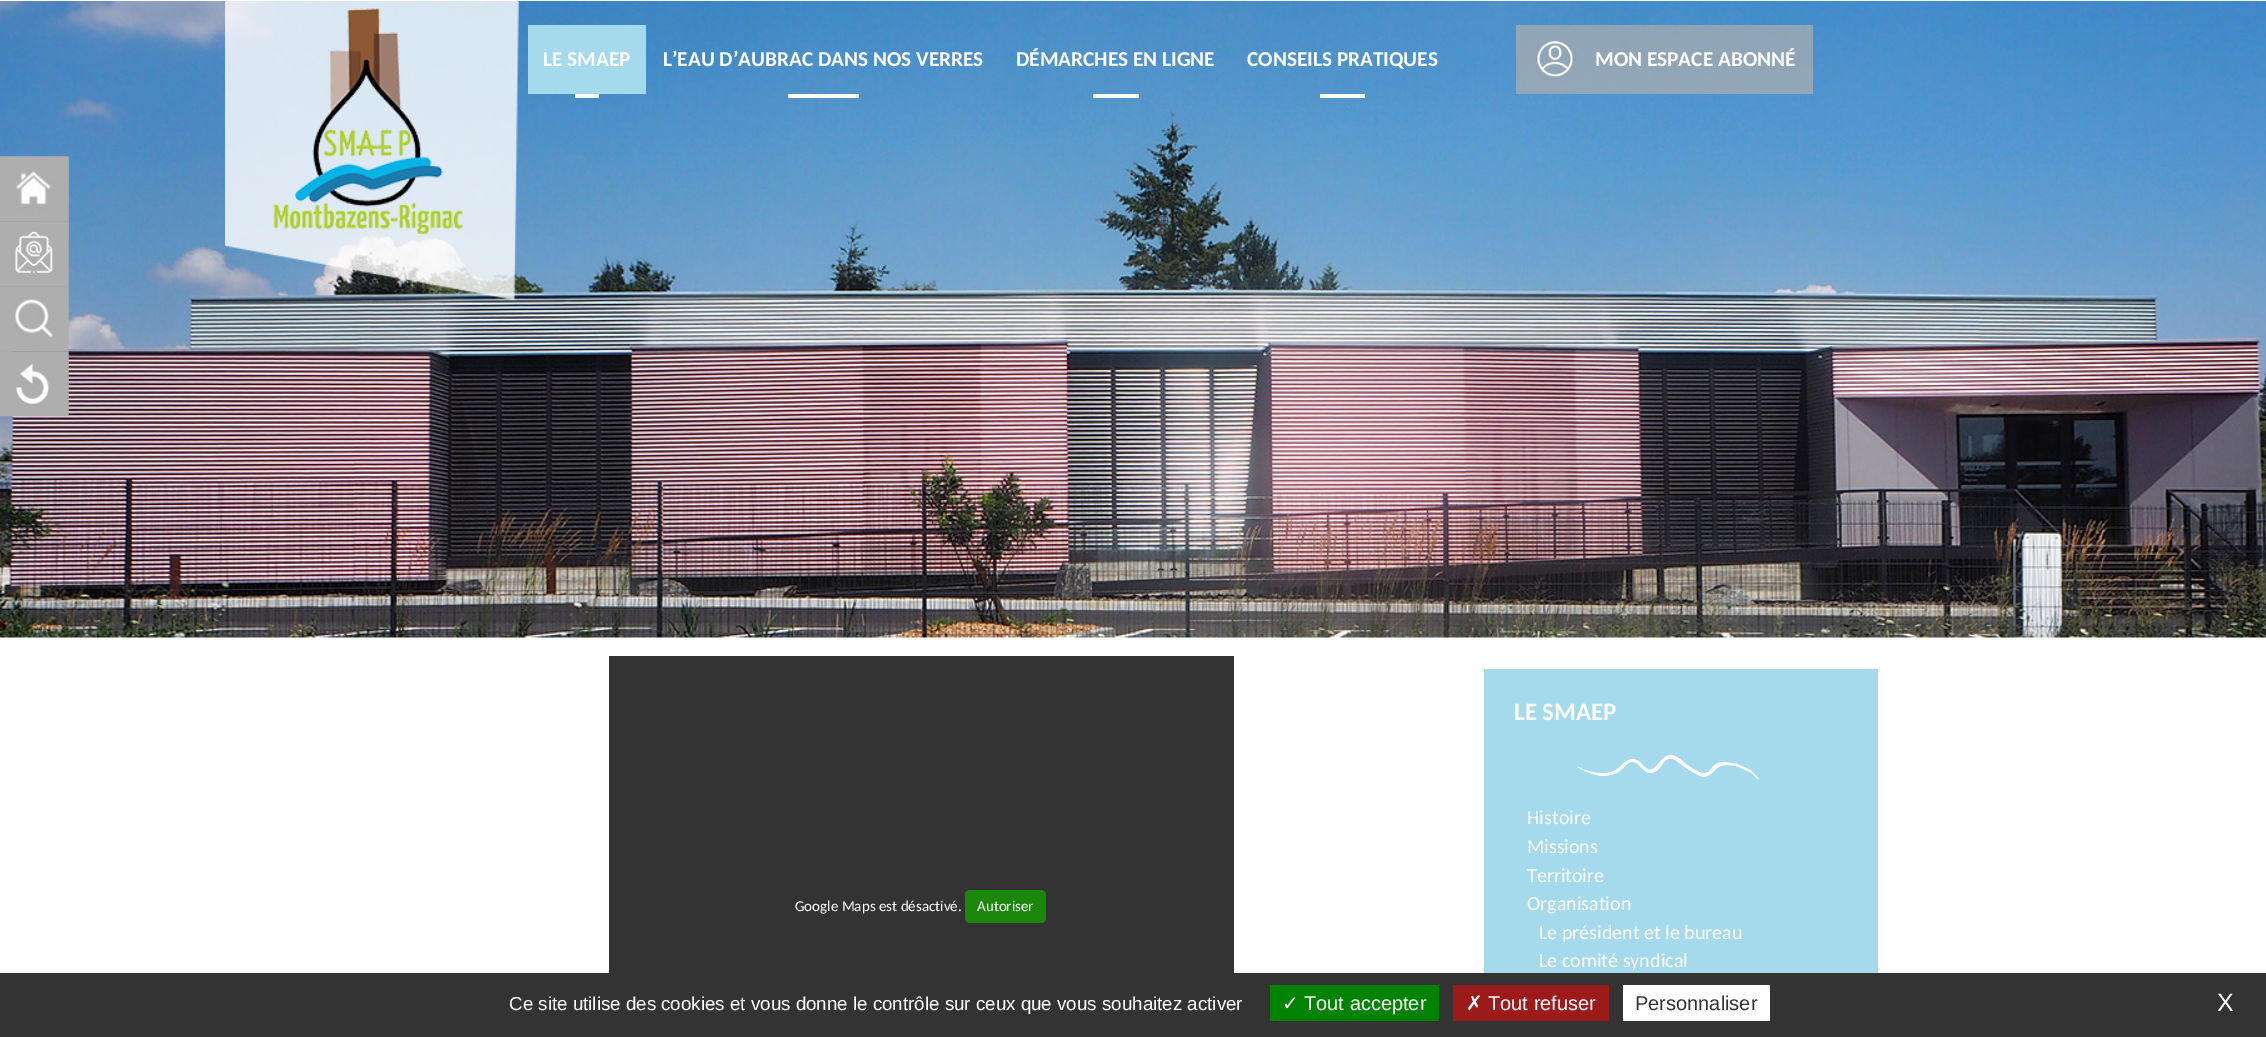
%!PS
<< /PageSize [2266 1037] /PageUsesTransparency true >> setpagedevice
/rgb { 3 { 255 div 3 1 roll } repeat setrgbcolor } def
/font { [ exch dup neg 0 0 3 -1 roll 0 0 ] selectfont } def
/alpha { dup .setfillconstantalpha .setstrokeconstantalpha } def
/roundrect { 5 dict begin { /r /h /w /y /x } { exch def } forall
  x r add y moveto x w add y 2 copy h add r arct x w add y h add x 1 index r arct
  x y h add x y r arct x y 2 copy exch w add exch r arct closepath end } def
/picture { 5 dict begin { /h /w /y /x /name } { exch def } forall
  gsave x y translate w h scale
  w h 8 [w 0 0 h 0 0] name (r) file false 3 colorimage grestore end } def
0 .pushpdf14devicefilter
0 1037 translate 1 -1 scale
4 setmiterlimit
255 255 255 rgb
0 0 2266 1037 rectfill
(img/1.rgb) 0 1 2266 637 picture
(img/2.rgb) 225 1 294 299 picture
[
  [528 25 118 69 165 217 236]
  [575 94 24 4 255 255 255]
  [788 94 71 4 255 255 255]
  [1093 94 46 4 255 255 255]
  [1320 94 45 4 255 255 255]
] { aload pop rgb rectfill } forall
0.7 alpha
[
  [1516 25 297 69 174 174 174]
] { aload pop rgb rectfill } forall
1 alpha
(img/3.rgb) 1537 41 36 36 picture
(img/4.rgb) 0 156 69 66 picture
(img/5.rgb) 0 221 69 66 picture
(img/6.rgb) 0 286 69 66 picture
(img/7.rgb) 0 351 69 66 picture
51 51 51 rgb
609 656 625 317 rectfill
27 135 11 rgb
965 890 81 33 5 roundrect fill
165 217 236 rgb
1484 669 394 304 rectfill
(img/8.rgb) 1576 755 183 25 picture
[
  [0 973 2266 64 51 51 51]
  [1270 985 169 36 0 131 0]
  [1453 985 156 36 156 26 26]
  [1623 985 147 36 255 255 255]
] { aload pop rgb rectfill } forall
/Carlito-Bold 21.25 font
[
  [(LE SMAEP) 543 66]
  [(L’EAU D’AUBRAC DANS NOS VERRES) 663 66]
  [(DÉMARCHES EN LIGNE) 1016 66]
  [(CONSEILS PRATIQUES) 1247 66]
  [(MON ESPACE ABONNÉ) 1595 66]
] { aload pop moveto show } forall
/Carlito-Regular 15 font
795 911 moveto (Google Maps est désactivé.) show
977 911 moveto (Autoriser) show
/Carlito-Bold 25 font
1514 720 moveto (LE SMAEP) show
/Carlito-Regular 20 font
[
  [(Histoire) 1527 824]
  [(Missions) 1527 853]
  [(Territoire) 1527 882]
  [(Organisation) 1527 910]
  [(Le président et le bureau) 1539 939]
  [(Le comité syndical) 1539 967]
] { aload pop moveto show } forall
/LiberationSans-Regular 18.75 font
509 1010 moveto (Ce site utilise des cookies et vous donne le contrôle sur ceux que vous souhaitez activer) show
/DejaVuSans-Regular 20 font
1282 1010 moveto (✓) show
/LiberationSans-Regular 20 font
1304 1010 moveto (Tout accepter) show
/DejaVuSans-Regular 20 font
1466 1010 moveto (✗) show
/LiberationSans-Regular 20 font
1488 1010 moveto (Tout refuser) show
51 51 51 rgb
1635 1010 moveto (Personnaliser) show
/LiberationSans-Regular 25 font
255 255 255 rgb
2217 1011 moveto (X) show
.poppdf14devicefilter showpage
